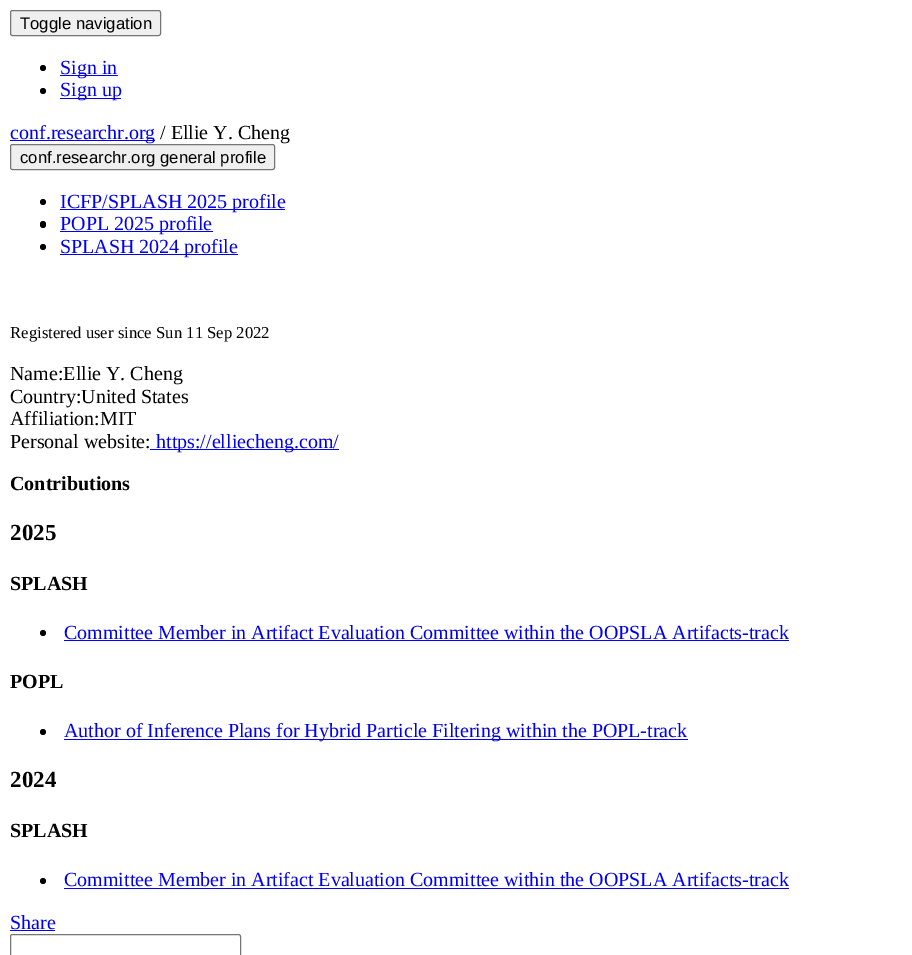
%!PS
<< /PageSize [912 955] >> setpagedevice
/rgb { 3 { 255 div 3 1 roll } repeat setrgbcolor } def
/font { [ exch dup neg 0 0 3 -1 roll 0 0 ] selectfont } def
/circle { newpath 0 360 arc closepath } def
/roundrect { 5 dict begin { /r /h /w /y /x } { exch def } forall
  x r add y moveto x w add y 2 copy h add r arct x w add y h add x 1 index r arct
  x y h add x y r arct x y 2 copy exch w add exch r arct closepath end } def
0 955 translate 1 -1 scale
4 setmiterlimit
255 255 255 rgb
0 0 912 955 rectfill
239 239 239 rgb
10.5 10.5 150 25 2 roundrect gsave fill grestore
118 118 118 rgb
stroke
0 0 0 rgb
43 68 3 circle fill
0 0 238 rgb
60 75 58 1 rectfill
0 0 0 rgb
43 91 3 circle fill
0 0 238 rgb
60 98 61 1 rectfill
10 140 145 1 rectfill
239 239 239 rgb
10.5 144.5 264 25 2 roundrect gsave fill grestore
118 118 118 rgb
stroke
0 0 0 rgb
43 202 3 circle fill
0 0 238 rgb
60 209 225 1 rectfill
0 0 0 rgb
40 221 6 7 3 roundrect fill
0 0 238 rgb
60 231 153 1 rectfill
0 0 0 rgb
43 247 3 circle fill
0 0 238 rgb
60 254 178 1 rectfill
150 449 189 1 rectfill
0 0 0 rgb
43 633 3 circle fill
0 0 238 rgb
64 640 725 1 rectfill
0 0 0 rgb
43 732 3 circle fill
0 0 238 rgb
64 739 624 1 rectfill
0 0 0 rgb
43 881 3 circle fill
0 0 238 rgb
64 888 725 1 rectfill
10 930 45 1 rectfill
118 118 118 rgb
10.5 934.5 230 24 2 roundrect stroke
/LiberationSans-Regular 16.7 font
0 0 0 rgb
20 29 moveto (Toggle navigation) show
/LiberationSerif-Regular 20 font
0 0 238 rgb
[
  [(Sign in) 60 74]
  [(Sign up) 60 96]
  [(conf.researchr.org) 10 139]
] { aload pop moveto show } forall
0 0 0 rgb
160 139 moveto (/ Ellie Y. Cheng) show
/LiberationSans-Regular 16.7 font
20 163 moveto (conf.researchr.org general profile) show
/LiberationSerif-Regular 20 font
0 0 238 rgb
[
  [(ICFP/SPLASH 2025 profile) 60 208]
  [(POPL 2025 profile) 60 230]
  [(SPLASH 2024 profile) 60 253]
] { aload pop moveto show } forall
/LiberationSerif-Regular 16.7 font
0 0 0 rgb
10 338 moveto (Registered user since Sun 11 Sep 2022) show
/LiberationSerif-Regular 20 font
[
  [(Name:Ellie Y. Cheng) 10 380]
  [(Country:United States) 10 403]
  [(Affiliation:MIT) 10 425]
  [(Personal website:) 10 448]
] { aload pop moveto show } forall
0 0 238 rgb
156 448 moveto (https://elliecheng.com/) show
/LiberationSerif-Bold 20 font
0 0 0 rgb
10 490 moveto (Contributions) show
/LiberationSerif-Bold 23 font
10 540 moveto (2025) show
/LiberationSerif-Bold 20 font
10 590 moveto (SPLASH) show
/LiberationSerif-Regular 20 font
0 0 238 rgb
64 639 moveto (Committee Member in Artifact Evaluation Committee within the OOPSLA Artifacts-track) show
/LiberationSerif-Bold 20 font
0 0 0 rgb
10 688 moveto (POPL) show
/LiberationSerif-Regular 20 font
0 0 238 rgb
64 737 moveto (Author of Inference Plans for Hybrid Particle Filtering within the POPL-track) show
/LiberationSerif-Bold 23 font
0 0 0 rgb
10 787 moveto (2024) show
/LiberationSerif-Bold 20 font
10 837 moveto (SPLASH) show
/LiberationSerif-Regular 20 font
0 0 238 rgb
64 886 moveto (Committee Member in Artifact Evaluation Committee within the OOPSLA Artifacts-track) show
10 929 moveto (Share) show
showpage
